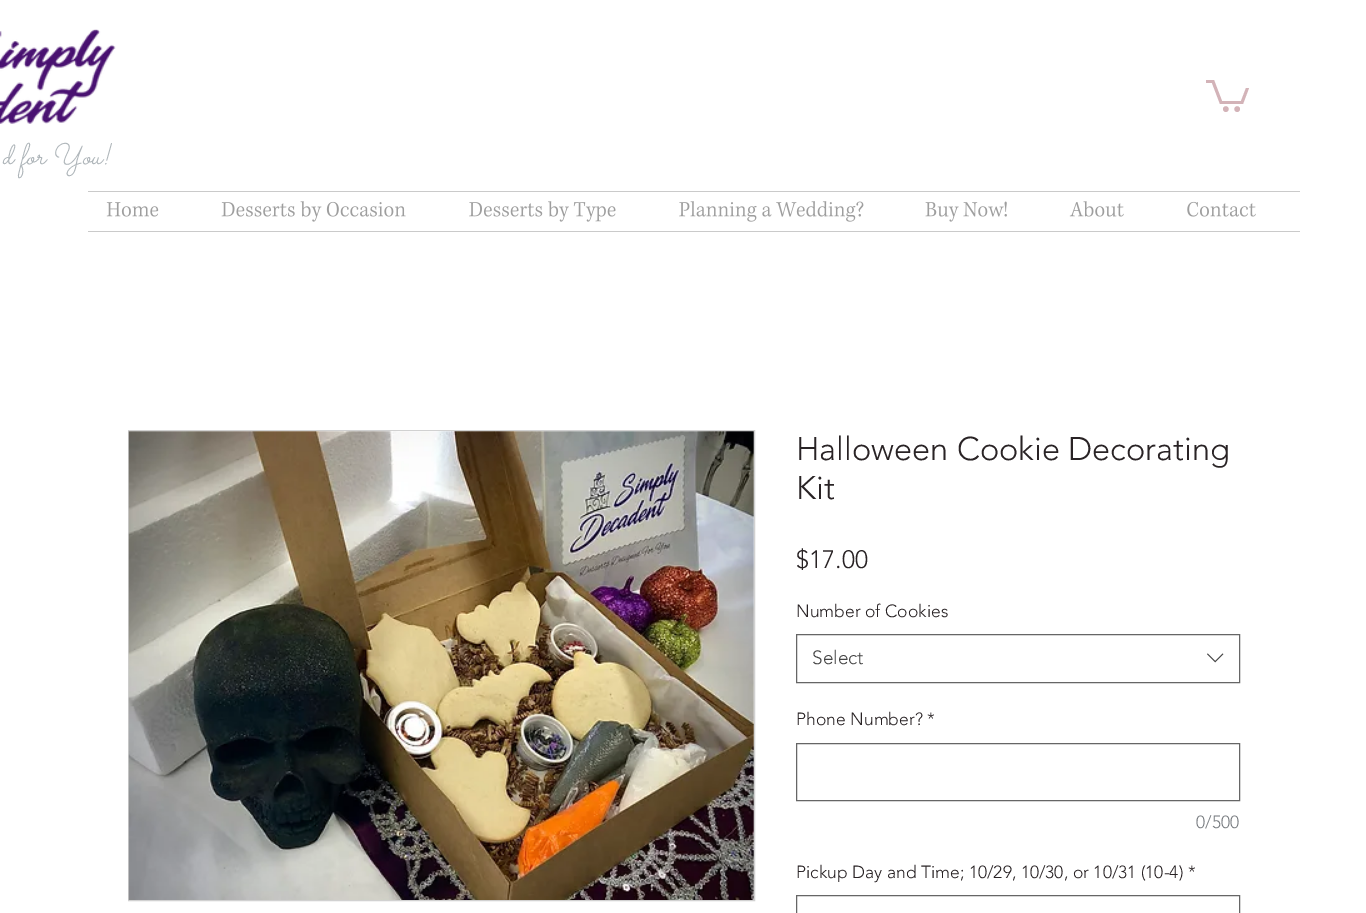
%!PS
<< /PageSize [1366 913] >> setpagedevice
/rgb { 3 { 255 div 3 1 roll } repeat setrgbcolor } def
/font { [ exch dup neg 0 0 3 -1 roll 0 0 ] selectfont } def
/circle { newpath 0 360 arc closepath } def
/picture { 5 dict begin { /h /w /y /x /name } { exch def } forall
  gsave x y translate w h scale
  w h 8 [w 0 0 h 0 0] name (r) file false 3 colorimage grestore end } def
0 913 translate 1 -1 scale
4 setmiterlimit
255 255 255 rgb
0 0 1366 913 rectfill
(img/1.rgb) 0 29 116 95 picture
211 179 184 rgb
1249 88 moveto 1243 104 lineto 1220 104 lineto 1212 83 lineto 1206 83 lineto 1206 80 lineto 1214 80 lineto 1222 101 lineto 1241 101 lineto 1246 88 lineto fill
1237.2 109.1 2.8 circle fill
1225.8 109.1 2.8 circle fill
202 202 202 rgb
88 191 1212 1 rectfill
88 231 1212 1 rectfill
(img/2.rgb) 106 202 53 15 picture
(img/3.rgb) 221 201 185 21 picture
(img/4.rgb) 469 201 147 21 picture
(img/5.rgb) 679 201 185 21 picture
(img/6.rgb) 925 201 82 21 picture
(img/7.rgb) 1069 201 55 16 picture
(img/8.rgb) 1187 201 69 16 picture
209 209 209 rgb
128.5 430.5 626 470 rectstroke
(img/9.rgb) 128 431 626 469 picture
102 102 102 rgb
796.5 634.5 443 48 rectstroke
(img/10.rgb) 1207 653 17 10 picture
796.5 743.5 443 57 rectstroke
796.5 895.5 443 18 rectstroke
/Sacramento-Italic 30 font
175 182 186 rgb
2 164 moveto (d for You!) show
/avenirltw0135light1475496-Light 32.5 font
41 35 37 rgb
796 460 moveto (Halloween Cookie Decorating) show
796 499 moveto (Kit) show
/avenirltw0135light1475496-Light 25 font
796 568 moveto ($17.00) show
/avenirltw0135light1475496-Light 17.5 font
796 617 moveto (Number of Cookies) show
/avenirltw0135light1475496-Light 19 font
68 68 68 rgb
812 664 moveto (Select) show
/avenirltw0135light1475496-Light 17.5 font
41 35 37 rgb
796 725 moveto (Phone Number?) show
927 725 moveto (*) show
120 124 128 rgb
1196 828 moveto (0/500) show
41 35 37 rgb
796 878 moveto (Pickup Day and Time; 10/29, 10/30, or 10/31 \(10-4\)) show
1188 878 moveto (*) show
showpage
